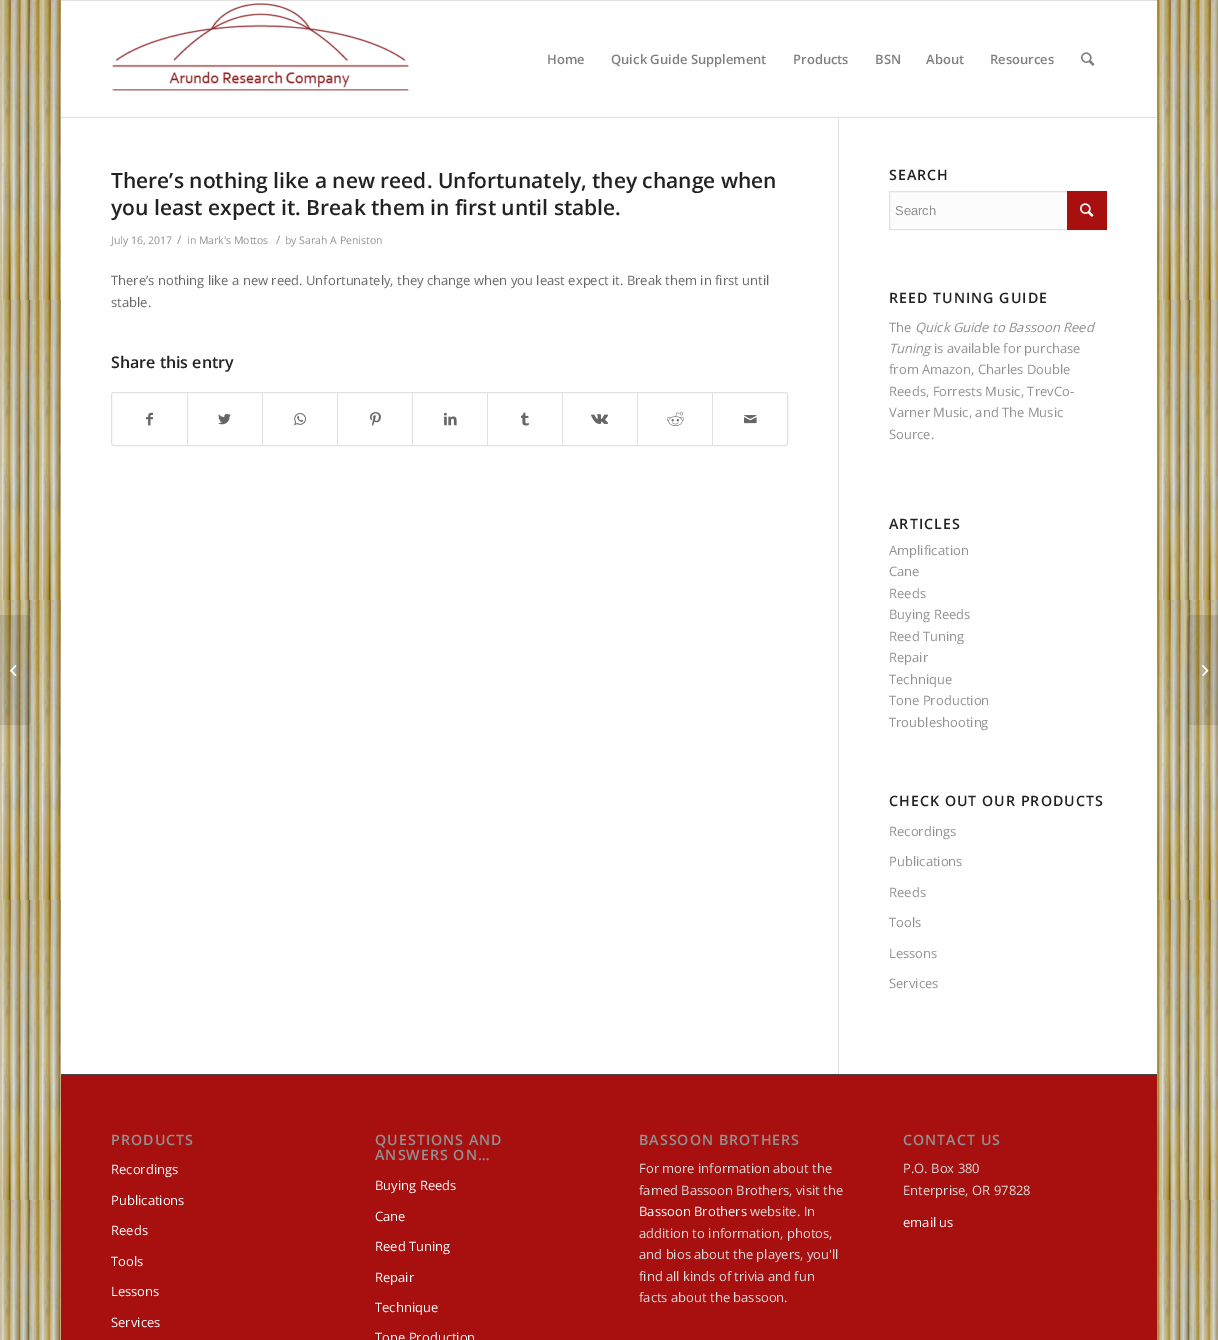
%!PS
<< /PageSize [1218 1340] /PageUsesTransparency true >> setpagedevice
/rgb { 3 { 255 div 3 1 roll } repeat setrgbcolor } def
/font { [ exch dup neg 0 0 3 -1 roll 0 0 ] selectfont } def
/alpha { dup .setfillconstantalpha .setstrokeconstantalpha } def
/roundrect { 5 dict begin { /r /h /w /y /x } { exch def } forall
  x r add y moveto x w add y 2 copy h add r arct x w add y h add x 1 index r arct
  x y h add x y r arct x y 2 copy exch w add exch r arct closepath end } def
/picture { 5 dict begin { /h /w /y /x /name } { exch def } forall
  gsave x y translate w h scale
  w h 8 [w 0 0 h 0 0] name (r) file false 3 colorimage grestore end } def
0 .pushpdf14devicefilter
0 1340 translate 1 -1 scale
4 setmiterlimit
255 255 255 rgb
0 0 1218 1340 rectfill
(img/1.rgb) 0 0 1218 1340 picture
[
  [61 0 1096 1 225 225 225]
  [61 1 1096 1073 255 255 255]
  [838 117 1 957 225 225 225]
  [61 117 1096 1 225 225 225]
] { aload pop rgb rectfill } forall
(img/2.rgb) 112 3 297 88 picture
(img/3.rgb) 1081 52 14 14 picture
61 116 1096 1 rectfill
0.95 alpha
255 255 255 rgb
61 116 1096 1 rectfill
0.1 alpha
0 0 0 rgb
0 615 moveto 27 615 lineto 29 615 31 617 31 619 curveto 31 721 lineto 31 723 29 725 27 725 curveto 0 725 lineto closepath fill
1 alpha
(img/4.rgb) 10 665 7 11 picture
225 225 225 rgb
111.5 392.5 676 53 2.5 roundrect stroke
(img/5.rgb) 146 412 7 14 picture
187 393 1 52 rectfill
(img/6.rgb) 218 413 13 12 picture
262 393 1 52 rectfill
(img/7.rgb) 294 413 12 13 picture
337 393 1 52 rectfill
(img/8.rgb) 370 412 11 14 picture
412 393 1 52 rectfill
(img/9.rgb) 444 412 13 14 picture
487 393 1 52 rectfill
(img/10.rgb) 521 412 8 14 picture
562 393 1 52 rectfill
(img/11.rgb) 591 414 17 10 picture
637 393 1 52 rectfill
(img/12.rgb) 667 412 17 15 picture
712 393 1 52 rectfill
(img/13.rgb) 744 415 13 9 picture
252 252 252 rgb
890 192 177 37 rectfill
225 225 225 rgb
889.5 191.5 217 38 rectstroke
168 16 16 rgb
1067 191 40 39 rectfill
(img/14.rgb) 1080 203 14 14 picture
61 1075 1096 265 rectfill
68 68 68 rgb
61 1074 1096 1 rectfill
0.1 alpha
0 0 0 rgb
1191 615 moveto 1218 615 lineto 1218 725 lineto 1191 725 lineto 1189 725 1187 723 1187 721 curveto 1187 619 lineto 1187 617 1189 615 1191 615 curveto closepath fill
1 alpha
(img/15.rgb) 1202 665 7 11 picture
/OpenSans-SemiBold 13 font
128 128 128 rgb
[
  [(Home) 547 64]
  [(Quick Guide Supplement) 611 64]
  [(Products) 793 64]
  [(BSN) 875 64]
  [(About) 926 64]
  [(Resources) 990 64]
] { aload pop moveto show } forall
/OpenSans-SemiBold 21 font
34 34 34 rgb
111 188 moveto (There’s nothing like a new reed. Unfortunately, they change when) show
111 215 moveto (you least expect it. Break them in first until stable.) show
/OpenSans-Regular 10.5 font
145 145 145 rgb
111 244 moveto (July 16, 2017) show
/OpenSans-Regular 12 font
177 244 moveto (/) show
/OpenSans-Regular 10.5 font
187 244 moveto (in Mark's Mottos) show
/OpenSans-Regular 12 font
276 244 moveto (/) show
/OpenSans-Regular 10.5 font
285 244 moveto (by Sarah A Peniston) show
/OpenSans-Regular 13 font
102 102 102 rgb
111 285 moveto (There’s nothing like a new reed. Unfortunately, they change when you least expect it. Break them in first until) show
111 307 moveto (stable.) show
/OpenSans-SemiBold 16 font
34 34 34 rgb
111 368 moveto (Share this entry) show
/OpenSans-SemiBold 14.25 font
889 180 moveto 1 0 (SEARCH) ashow
/LiberationSans-Regular 13 font
145 145 145 rgb
895 215 moveto (Search) show
/OpenSans-SemiBold 14.25 font
34 34 34 rgb
889 303 moveto 1 0 (REED TUNING GUIDE) ashow
/OpenSans-Regular 13 font
145 145 145 rgb
889 332 moveto (The) show
/OpenSans-Italic 13 font
915 332 moveto (Quick Guide to Bassoon Reed) show
889 353 moveto (Tuning) show
/OpenSans-Regular 13 font
[
  [(is available for purchase) 934 353]
  [(from Amazon, Charles Double) 889 374]
  [(Reeds, Forrests Music, TrevCo-) 889 396]
  [(Varner Music, and The Music) 889 417]
  [(Source.) 889 439]
] { aload pop moveto show } forall
/OpenSans-SemiBold 14.25 font
34 34 34 rgb
889 529 moveto 1 0 (ARTICLES) ashow
/OpenSans-Regular 13 font
145 145 145 rgb
[
  [(Amplification) 889 555]
  [(Cane) 889 576]
  [(Reeds) 889 598]
  [(Buying Reeds) 889 619]
  [(Reed Tuning) 889 641]
  [(Repair) 889 662]
  [(Technique) 889 684]
  [(Tone Production) 889 705]
  [(Troubleshooting) 889 727]
] { aload pop moveto show } forall
/OpenSans-SemiBold 14.25 font
34 34 34 rgb
889 806 moveto 1 0 (CHECK OUT OUR PRODUCTS) ashow
/OpenSans-Regular 13 font
145 145 145 rgb
[
  [(Recordings) 889 836]
  [(Publications) 889 866]
  [(Reeds) 889 897]
  [(Tools) 889 927]
  [(Lessons) 889 958]
  [(Services) 889 988]
] { aload pop moveto show } forall
/OpenSans-SemiBold 14.25 font
111 1145 moveto 1 0 (PRODUCTS) ashow
/OpenSans-Regular 13 font
255 255 255 rgb
[
  [(Recordings) 111 1174]
  [(Publications) 111 1205]
  [(Reeds) 111 1235]
  [(Tools) 111 1266]
  [(Lessons) 111 1296]
  [(Services) 111 1327]
] { aload pop moveto show } forall
/OpenSans-SemiBold 14.25 font
145 145 145 rgb
375 1145 moveto 1 0 (QUESTIONS AND) ashow
375 1160 moveto 1 0 (ANSWERS ON…) ashow
/OpenSans-Regular 13 font
255 255 255 rgb
[
  [(Buying Reeds) 375 1190]
  [(Cane) 375 1221]
  [(Reed Tuning) 375 1251]
  [(Repair) 375 1282]
  [(Technique) 375 1312]
  [(Tone Production) 375 1342]
] { aload pop moveto show } forall
/OpenSans-SemiBold 14.25 font
145 145 145 rgb
639 1145 moveto 1 0 (BASSOON BROTHERS) ashow
/OpenSans-Regular 13 font
221 221 221 rgb
639 1173 moveto (For more information about the) show
639 1195 moveto (famed Bassoon Brothers, visit the) show
255 255 255 rgb
639 1216 moveto (Bassoon Brothers) show
221 221 221 rgb
[
  [(website. In) 750 1216]
  [(addition to information, photos,) 639 1238]
  [(and bios about the players, you'll) 639 1259]
  [(find all kinds of trivia and fun) 639 1281]
  [(facts about the bassoon.) 639 1302]
] { aload pop moveto show } forall
/OpenSans-SemiBold 14.25 font
145 145 145 rgb
903 1145 moveto 1 0 (CONTACT US) ashow
/OpenSans-Regular 13 font
221 221 221 rgb
903 1173 moveto (P.O. Box 380) show
903 1195 moveto (Enterprise, OR 97828) show
255 255 255 rgb
903 1227 moveto (email us) show
.poppdf14devicefilter showpage
